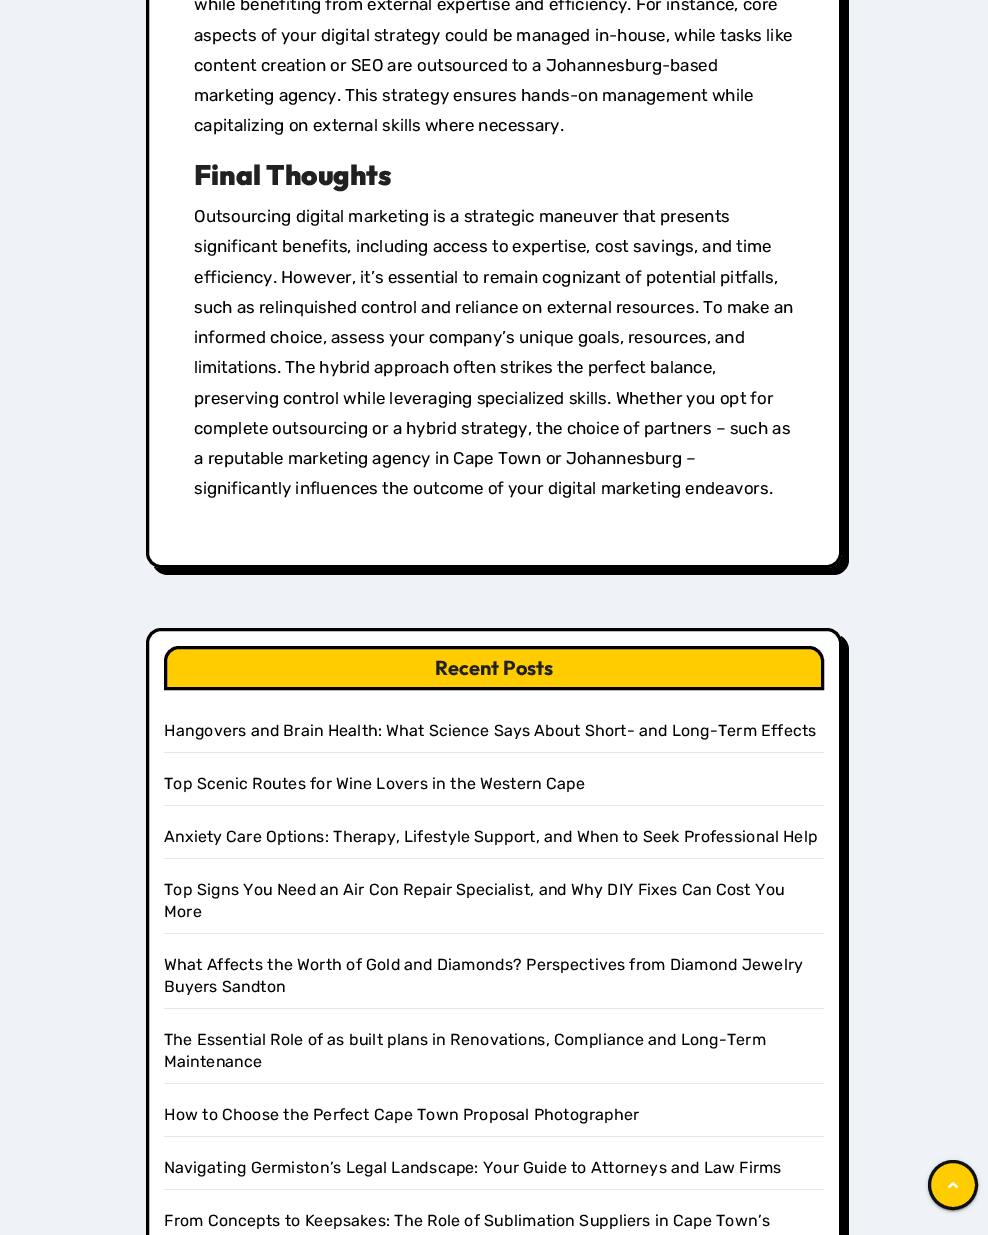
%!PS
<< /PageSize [988 1235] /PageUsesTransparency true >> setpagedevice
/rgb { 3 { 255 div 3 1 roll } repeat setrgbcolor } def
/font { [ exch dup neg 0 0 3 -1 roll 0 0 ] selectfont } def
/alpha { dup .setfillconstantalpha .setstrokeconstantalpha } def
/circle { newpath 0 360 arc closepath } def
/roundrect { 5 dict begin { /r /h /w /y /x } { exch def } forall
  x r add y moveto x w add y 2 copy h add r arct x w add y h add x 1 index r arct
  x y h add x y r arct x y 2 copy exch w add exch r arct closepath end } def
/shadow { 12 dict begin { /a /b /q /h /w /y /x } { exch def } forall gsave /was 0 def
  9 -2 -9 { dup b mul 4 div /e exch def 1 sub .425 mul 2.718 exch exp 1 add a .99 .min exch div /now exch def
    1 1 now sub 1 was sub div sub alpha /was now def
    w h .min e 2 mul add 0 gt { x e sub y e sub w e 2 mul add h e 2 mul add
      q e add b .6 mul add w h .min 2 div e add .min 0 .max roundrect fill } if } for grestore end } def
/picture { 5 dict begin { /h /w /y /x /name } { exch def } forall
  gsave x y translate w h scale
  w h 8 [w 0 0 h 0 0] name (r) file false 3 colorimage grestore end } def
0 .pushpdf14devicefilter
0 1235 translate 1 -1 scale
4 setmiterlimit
239 242 247 rgb
0 0 988 1235 rectfill
0 0 0 rgb
154 567 moveto 157 572 162 575 168 575 curveto 834 575 lineto 842 575 849 568 849 560 curveto 849 -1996 lineto 849 -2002 846 -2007 841 -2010 curveto 841 -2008 842 -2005 842 -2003 curveto 842 553 lineto 842 561 835 568 827 568 curveto 161 568 lineto 159 568 156 567 154 567 curveto closepath fill
255 255 255 rgb
147.5 -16.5 693 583 13.5 roundrect gsave fill grestore
0 0 0 rgb
3 setlinewidth
stroke
154 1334 moveto 157 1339 162 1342 168 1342 curveto 834 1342 lineto 842 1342 849 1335 849 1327 curveto 849 650 lineto 849 644 846 639 841 636 curveto 841 638 842 641 842 643 curveto 842 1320 lineto 842 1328 835 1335 827 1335 curveto 161 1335 lineto 159 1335 156 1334 154 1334 curveto closepath fill
255 255 255 rgb
147.5 629.5 693 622 13.5 roundrect gsave fill grestore
0 0 0 rgb
stroke
255 204 0 rgb
179 647.5 moveto 809 647.5 lineto 816.5 647.5 822.5 653.5 822.5 661 curveto 822.5 688.5 lineto 165.5 688.5 lineto 165.5 661 lineto 165.5 653.5 171.5 647.5 179 647.5 curveto closepath gsave fill grestore
0 0 0 rgb
stroke
[
  [164 752 660 1 226 232 240]
  [164 805 660 1 226 232 240]
  [164 858 660 1 226 232 240]
  [164 933 660 1 226 232 240]
  [164 1008 660 1 226 232 240]
  [164 1083 660 1 226 232 240]
  [164 1136 660 1 226 232 240]
  [164 1189 660 1 226 232 240]
] { aload pop rgb rectfill } forall
0 0 0 rgb
928 1161 50 50 25 2.5 0.12 shadow
930 1165 46 46 23 0.5 0.2 shadow
928 1162 50 50 25 1 0.14 shadow
255 204 0 rgb
953 1185 23.5 circle gsave fill grestore
15 16 18 rgb
stroke
(img/1.rgb) 948 1181 10 8 picture
/Rubik-Light 17 font
0 0 0 rgb
[
  [(while benefiting from external expertise and efficiency. For instance, core) 194 10]
  [(aspects of your digital strategy could be managed in-house, while tasks like) 194 41]
  [(content creation or SEO are outsourced to a Johannesburg-based) 194 71]
  [(marketing agency. This strategy ensures hands-on management while) 194 101]
  [(capitalizing on external skills where necessary.) 194 131]
] { aload pop moveto show } forall
/Outfit-Black 28 font
33 33 33 rgb
194 185 moveto (Final Thoughts) show
/Rubik-Light 17 font
0 0 0 rgb
[
  [(Outsourcing digital marketing is a strategic maneuver that presents) 194 222]
  [(significant benefits, including access to expertise, cost savings, and time) 194 252]
  [(efficiency. However, it’s essential to remain cognizant of potential pitfalls,) 194 283]
  [(such as relinquished control and reliance on external resources. To make an) 194 313]
  [(informed choice, assess your company’s unique goals, resources, and) 194 343]
  [(limitations. The hybrid approach often strikes the perfect balance,) 194 373]
  [(preserving control while leveraging specialized skills. Whether you opt for) 194 404]
  [(complete outsourcing or a hybrid strategy, the choice of partners – such as) 194 434]
  [(a reputable marketing agency in Cape Town or Johannesburg –) 194 464]
  [(significantly influences the outcome of your digital marketing endeavors.) 194 494]
] { aload pop moveto show } forall
/Outfit-Bold 20 font
33 33 33 rgb
435 675 moveto (Recent Posts) show
/Rubik-Light 16 font
0 0 0 rgb
164 736 moveto 0.2 0 (Hangovers and Brain Health: What Science Says About Short- and Long-Term Effects) ashow
164 789 moveto 0.2 0 (Top Scenic Routes for Wine Lovers in the Western Cape) ashow
164 842 moveto 0.2 0 (Anxiety Care Options: Therapy, Lifestyle Support, and When to Seek Professional Help) ashow
164 895 moveto 0.2 0 (Top Signs You Need an Air Con Repair Specialist, and Why DIY Fixes Can Cost You) ashow
164 917 moveto 0.2 0 (More) ashow
164 970 moveto 0.2 0 (What Affects the Worth of Gold and Diamonds? Perspectives from Diamond Jewelry) ashow
164 992 moveto 0.2 0 (Buyers Sandton) ashow
164 1045 moveto 0.2 0 (The Essential Role of as built plans in Renovations, Compliance and Long-Term) ashow
164 1067 moveto 0.2 0 (Maintenance) ashow
164 1120 moveto 0.2 0 (How to Choose the Perfect Cape Town Proposal Photographer) ashow
164 1173 moveto 0.2 0 (Navigating Germiston’s Legal Landscape: Your Guide to Attorneys and Law Firms) ashow
164 1226 moveto 0.2 0 (From Concepts to Keepsakes: The Role of Sublimation Suppliers in Cape Town’s) ashow
.poppdf14devicefilter showpage
